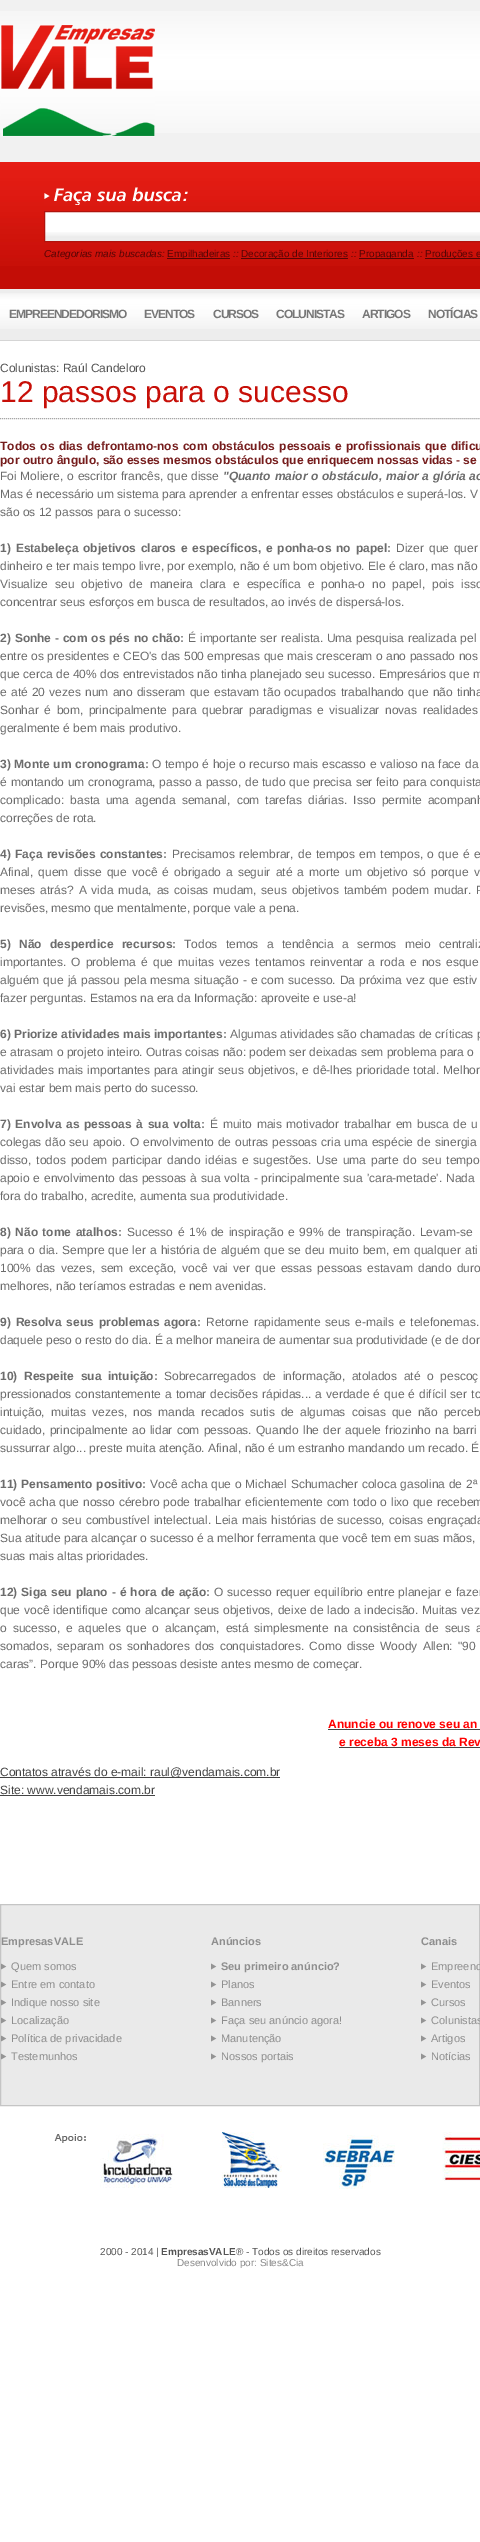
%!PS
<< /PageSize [480 2542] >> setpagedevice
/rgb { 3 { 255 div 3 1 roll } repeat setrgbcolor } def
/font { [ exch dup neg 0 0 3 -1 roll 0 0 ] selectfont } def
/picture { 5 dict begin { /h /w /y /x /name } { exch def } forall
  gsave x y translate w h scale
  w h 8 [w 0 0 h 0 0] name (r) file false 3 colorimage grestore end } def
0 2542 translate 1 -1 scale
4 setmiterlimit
255 255 255 rgb
0 0 480 2542 rectfill
241 241 241 rgb
0 0 480 162 rectfill
(img/1.rgb) 0 11 480 122 picture
(img/2.rgb) 1 25 154 112 picture
195 13 6 rgb
0 266 480 23 rectfill
(img/3.rgb) 0 162 480 104 picture
(img/4.rgb) 44 187 144 18 picture
255 255 255 rgb
45 212 435 20 rectfill
(img/5.rgb) 45 232 435 9 picture
177 19 13 rgb
44.5 211.5 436 30 rectstroke
[
  [167 258 63 1 85 5 5]
  [241 258 107 1 85 5 5]
  [359 258 55 1 85 5 5]
  [425 258 55 1 85 5 5]
  [0 289 480 51 237 237 237]
] { aload pop rgb rectfill } forall
(img/6.rgb) 0 293 480 36 picture
213 213 213 rgb
0 340 480 1 rectfill
167 167 167 rgb
[1 1] 0 setdash
0 418.5 moveto 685 418.5 lineto stroke
[
  [328 1729 152 1 68 68 68]
  [339 1747 141 1 68 68 68]
  [0 1777 280 1 68 68 68]
  [0 1795 155 1 68 68 68]
] { aload pop rgb rectfill } forall
234 234 234 rgb
0.5 1904.5 moveto 479.5 1904.5 lineto 479.5 2105.5 lineto 0.5 2105.5 lineto closepath gsave fill grestore
197 197 197 rgb
[] 0 setdash
stroke
(img/7.rgb) 1 1963 6 7 picture
(img/7.rgb) 1 1981 6 7 picture
(img/7.rgb) 1 1999 6 7 picture
(img/7.rgb) 1 2017 6 7 picture
(img/7.rgb) 1 2035 6 7 picture
(img/7.rgb) 1 2053 6 7 picture
(img/7.rgb) 211 1963 6 7 picture
(img/7.rgb) 211 1981 6 7 picture
(img/7.rgb) 211 1999 6 7 picture
(img/7.rgb) 211 2017 6 7 picture
(img/7.rgb) 211 2035 6 7 picture
(img/7.rgb) 211 2053 6 7 picture
(img/7.rgb) 421 1963 6 7 picture
(img/7.rgb) 421 1981 6 7 picture
(img/7.rgb) 421 1999 6 7 picture
(img/7.rgb) 421 2017 6 7 picture
(img/7.rgb) 421 2035 6 7 picture
(img/7.rgb) 421 2053 6 7 picture
(img/8.rgb) 54 2134 32 9 picture
(img/9.rgb) 100 2134 75 54 picture
(img/10.rgb) 222 2132 60 56 picture
(img/11.rgb) 323 2135 72 54 picture
(img/12.rgb) 442 2132 38 49 picture
/LiberationSans-Italic 10 font
85 5 5 rgb
44 257 moveto (Categorias mais buscadas:) show
/LiberationSans-Regular 10 font
167 257 moveto (Empilhadeiras) show
/LiberationSans-Italic 10 font
233 257 moveto (::) show
/LiberationSans-Regular 10 font
241 257 moveto (Decoração de Interiores) show
/LiberationSans-Italic 10 font
351 257 moveto (::) show
/LiberationSans-Regular 10 font
359 257 moveto (Propaganda) show
/LiberationSans-Italic 10 font
417 257 moveto (::) show
/LiberationSans-Regular 10 font
425 257 moveto (Produções e) show
/LiberationSans-Bold 12 font
119 119 119 rgb
9 318 moveto -1 0 (EMPREENDEDORISMO) ashow
144 318 moveto -1 0 (EVENTOS) ashow
213 318 moveto -1 0 (CURSOS) ashow
276 318 moveto -1 0 (COLUNISTAS) ashow
362 318 moveto -1 0 (ARTIGOS) ashow
428 318 moveto -1 0 (NOTÍCIAS) ashow
/LiberationSans-Regular 12 font
84 84 84 rgb
0 372 moveto (Colunistas: Raúl Candeloro) show
/LiberationSans-Regular 30 font
199 15 8 rgb
0 402 moveto (12 passos para o sucesso) show
/LiberationSans-Bold 12 font
117 28 28 rgb
0 450 moveto 1 0 32 (Todos os dias defrontamo-nos com obstáculos pessoais e profissionais que dificu) widthshow
0 464 moveto (por outro ângulo, são esses mesmos obstáculos que enriquecem nossas vidas - se) show
/LiberationSans-Regular 12 font
108 108 108 rgb
0 480 moveto 0.5 0 32 (Foi Moliere, o escritor francês, que disse) widthshow
/LiberationSans-BoldItalic 12 font
223 480 moveto 0.5 0 32 ("Quanto maior o obstáculo, maior a glória ao) widthshow
/LiberationSans-Regular 12 font
0 498 moveto (Mas é necessário um sistema para aprender a enfrentar esses obstáculos e superá-los. V) show
0 516 moveto (são os 12 passos para o sucesso:) show
/LiberationSans-Bold 12 font
0 552 moveto 1.5 0 32 (1\) Estabeleça objetivos claros e específicos, e ponha-os no papel:) widthshow
/LiberationSans-Regular 12 font
396 552 moveto 1.5 0 32 (Dizer que quer) widthshow
0 570 moveto (dinheiro e ter mais tempo livre, por exemplo, não é um bom objetivo. Ele é claro, mas não) show
0 588 moveto 3.6 0 32 (Visualize seu objetivo de maneira clara e específica e ponha-o no papel, pois isso) widthshow
0 606 moveto (concentrar seus esforços em busca de resultados, ao invés de dispersá-los.) show
/LiberationSans-Bold 12 font
0 642 moveto 0.5 0 32 (2\) Sonhe - com os pés no chão:) widthshow
/LiberationSans-Regular 12 font
188 642 moveto 0.5 0 32 (É importante ser realista. Uma pesquisa realizada pel) widthshow
0 660 moveto 0.25 0 32 (entre os presidentes e CEO's das 500 empresas que mais cresceram o ano passado nos) widthshow
0 678 moveto (que cerca de 40% dos entrevistados não tinha planejado seu sucesso. Empresários que m) show
0 696 moveto 0.9 0 32 (e até 20 vezes num ano disseram que estavam tão ocupados trabalhando que não tinha) widthshow
0 714 moveto 2.25 0 32 (Sonhar é bom, principalmente para quebrar paradigmas e visualizar novas realidades) widthshow
0 732 moveto (geralmente é bem mais produtivo.) show
/LiberationSans-Bold 12 font
0 768 moveto 0.4 0 32 (3\) Monte um cronograma:) widthshow
/LiberationSans-Regular 12 font
152 768 moveto 0.4 0 32 (O tempo é hoje o recurso mais escasso e valioso na face da) widthshow
0 786 moveto 0.5 0 32 (é montando um cronograma, passo a passo, de tudo que precisa ser feito para conquista) widthshow
0 804 moveto 2.9 0 32 (complicado: basta uma agenda semanal, com tarefas diárias. Isso permite acompanh) widthshow
0 822 moveto (correções de rota.) show
/LiberationSans-Bold 12 font
0 858 moveto 1 0 32 (4\) Faça revisões constantes:) widthshow
/LiberationSans-Regular 12 font
172 858 moveto 1 0 32 (Precisamos relembrar, de tempos em tempos, o que é e) widthshow
0 876 moveto 1.8 0 32 (Afinal, quem disse que você é obrigado a seguir até a morte um objetivo só porque v) widthshow
0 894 moveto 1.6 0 32 (meses atrás? A vida muda, as coisas mudam, seus objetivos também podem mudar. P) widthshow
0 912 moveto (revisões, mesmo que mentalmente, porque vale a pena.) show
/LiberationSans-Bold 12 font
0 948 moveto 5 0 32 (5\) Não desperdice recursos:) widthshow
/LiberationSans-Regular 12 font
184 948 moveto 5 0 32 (Todos temos a tendência a sermos meio centraliz) widthshow
0 966 moveto 1.9 0 32 (importantes. O problema é que muitas vezes tentamos reinventar a roda e nos esque) widthshow
0 984 moveto 0.75 0 32 (alguém que já passou pela mesma situação - e com sucesso. Da próxima vez que estiv) widthshow
0 1002 moveto (fazer perguntas. Estamos na era da Informação: aproveite e use-a!) show
/LiberationSans-Bold 12 font
0 1038 moveto (6\) Priorize atividades mais importantes:) show
/LiberationSans-Regular 12 font
230 1038 moveto (Algumas atividades são chamadas de críticas p) show
0 1056 moveto (e atrasam o projeto inteiro. Outras coisas não: podem ser deixadas sem problema para o) show
0 1074 moveto 0.6 0 32 (atividades mais importantes para atingir seus objetivos, e dê-lhes prioridade total. Melhor) widthshow
0 1092 moveto (vai estar bem mais perto do sucesso.) show
/LiberationSans-Bold 12 font
0 1128 moveto 1.25 0 32 (7\) Envolva as pessoas à sua volta:) widthshow
/LiberationSans-Regular 12 font
210 1128 moveto 1.25 0 32 (É muito mais motivador trabalhar em busca de u) widthshow
0 1146 moveto 0.7 0 32 (colegas dão seu apoio. O envolvimento de outras pessoas cria uma espécie de sinergia) widthshow
0 1164 moveto 1.7 0 32 (disso, todos podem participar dando idéias e sugestões. Use uma parte do seu tempo) widthshow
0 1182 moveto 0.6 0 32 (apoio e envolvimento das pessoas à sua volta - principalmente sua 'cara-metade'. Nada) widthshow
0 1200 moveto (fora do trabalho, acredite, aumenta sua produtividade.) show
/LiberationSans-Bold 12 font
0 1236 moveto 1.25 0 32 (8\) Não tome atalhos:) widthshow
/LiberationSans-Regular 12 font
127 1236 moveto 1.25 0 32 (Sucesso é 1% de inspiração e 99% de transpiração. Levam-se) widthshow
0 1254 moveto 0.75 0 32 (para o dia. Sempre que ler a história de alguém que se deu muito bem, em qualquer ati) widthshow
0 1272 moveto 2 0 32 (100% das vezes, sem exceção, você vai ver que essas pessoas estavam dando duro) widthshow
0 1290 moveto (melhores, não teríamos estradas e nem avenidas.) show
/LiberationSans-Bold 12 font
0 1326 moveto 1.5 0 32 (9\) Resolva seus problemas agora:) widthshow
/LiberationSans-Regular 12 font
206 1326 moveto 1.5 0 32 (Retorne rapidamente seus e-mails e telefonemas.) widthshow
0 1344 moveto (daquele peso o resto do dia. É a melhor maneira de aumentar sua produtividade \(e de dor) show
/LiberationSans-Bold 12 font
0 1380 moveto 3.25 0 32 (10\) Respeite sua intuição:) widthshow
/LiberationSans-Regular 12 font
164 1380 moveto 3.25 0 32 (Sobrecarregados de informação, atolados até o pescoç) widthshow
0 1398 moveto 0.75 0 32 (pressionados constantemente a tomar decisões rápidas... a verdade é que é difícil ser to) widthshow
0 1416 moveto 2.75 0 32 (intuição, muitas vezes, nos manda recados sutis de algumas coisas que não perceb) widthshow
0 1434 moveto 1 0 32 (cuidado, principalmente ao lidar com pessoas. Quando lhe der aquele friozinho na barri) widthshow
0 1452 moveto (sussurrar algo... preste muita atenção. Afinal, não é um estranho mandando um recado. É) show
/LiberationSans-Bold 12 font
0 1488 moveto 0.5 0 32 (11\) Pensamento positivo:) widthshow
/LiberationSans-Regular 12 font
150 1488 moveto 0.5 0 32 (Você acha que o Michael Schumacher coloca gasolina de 2ª) widthshow
0 1506 moveto 0.5 0 32 (você acha que nosso cérebro pode trabalhar eficientemente com todo o lixo que recebem) widthshow
0 1524 moveto 0.75 0 32 (melhorar o seu combustível intelectual. Leia mais histórias de sucesso, coisas engraçada) widthshow
0 1542 moveto (Sua atitude para alcançar o sucesso é a melhor ferramenta que você tem em suas mãos,) show
0 1560 moveto (suas mais altas prioridades.) show
/LiberationSans-Bold 12 font
0 1596 moveto 0.75 0 32 (12\) Siga seu plano - é hora de ação:) widthshow
/LiberationSans-Regular 12 font
214 1596 moveto 0.75 0 32 (O sucesso requer equilíbrio entre planejar e fazer) widthshow
0 1614 moveto 0.5 0 32 (que você identifique como alcançar seus objetivos, deixe de lado a indecisão. Muitas vez) widthshow
0 1632 moveto 2.6 0 32 (o sucesso, e aqueles que o alcançam, está simplesmente na consistência de seus a) widthshow
0 1650 moveto 1.9 0 32 (somados, separam os sonhadores dos conquistadores. Como disse Woody Allen: "90) widthshow
0 1668 moveto (caras”. Porque 90% das pessoas desiste antes mesmo de começar.) show
/LiberationSans-Bold 12 font
255 0 0 rgb
328 1728 moveto (Anuncie ou renove seu an) show
339 1746 moveto (e receba 3 meses da Rev) show
/LiberationSans-Regular 12 font
68 68 68 rgb
0 1776 moveto (Contatos através do e-mail: raul@vendamais.com.br) show
0 1794 moveto (Site: www.vendamais.com.br) show
/LiberationSans-Bold 11 font
142 142 142 rgb
1 1945 moveto (EmpresasVALE) show
/LiberationSans-Regular 11 font
[
  [(Quem somos) 11 1970]
  [(Entre em contato) 11 1988]
  [(Indique nosso site) 11 2006]
  [(Localização) 11 2024]
  [(Política de privacidade) 11 2042]
  [(Testemunhos) 11 2060]
] { aload pop moveto show } forall
/LiberationSans-Bold 11 font
211 1945 moveto (Anúncios) show
221 1970 moveto (Seu primeiro anúncio?) show
/LiberationSans-Regular 11 font
[
  [(Planos) 221 1988]
  [(Banners) 221 2006]
  [(Faça seu anúncio agora!) 221 2024]
  [(Manutenção) 221 2042]
  [(Nossos portais) 221 2060]
] { aload pop moveto show } forall
/LiberationSans-Bold 11 font
421 1945 moveto (Canais) show
/LiberationSans-Regular 11 font
[
  [(Empreend) 431 1970]
  [(Eventos) 431 1988]
  [(Cursos) 431 2006]
  [(Colunistas) 431 2024]
  [(Artigos) 431 2042]
  [(Notícias) 431 2060]
] { aload pop moveto show } forall
/LiberationSans-Regular 10 font
84 84 84 rgb
100 2255 moveto (2000 - 2014 |) show
/LiberationSans-Bold 10 font
161 2255 moveto (EmpresasVALE) show
/LiberationSans-Regular 10 font
236 2255 moveto (® - Todos os direitos reservados) show
136 136 136 rgb
177 2266 moveto (Desenvolvido por: Sites&Cia) show
showpage
